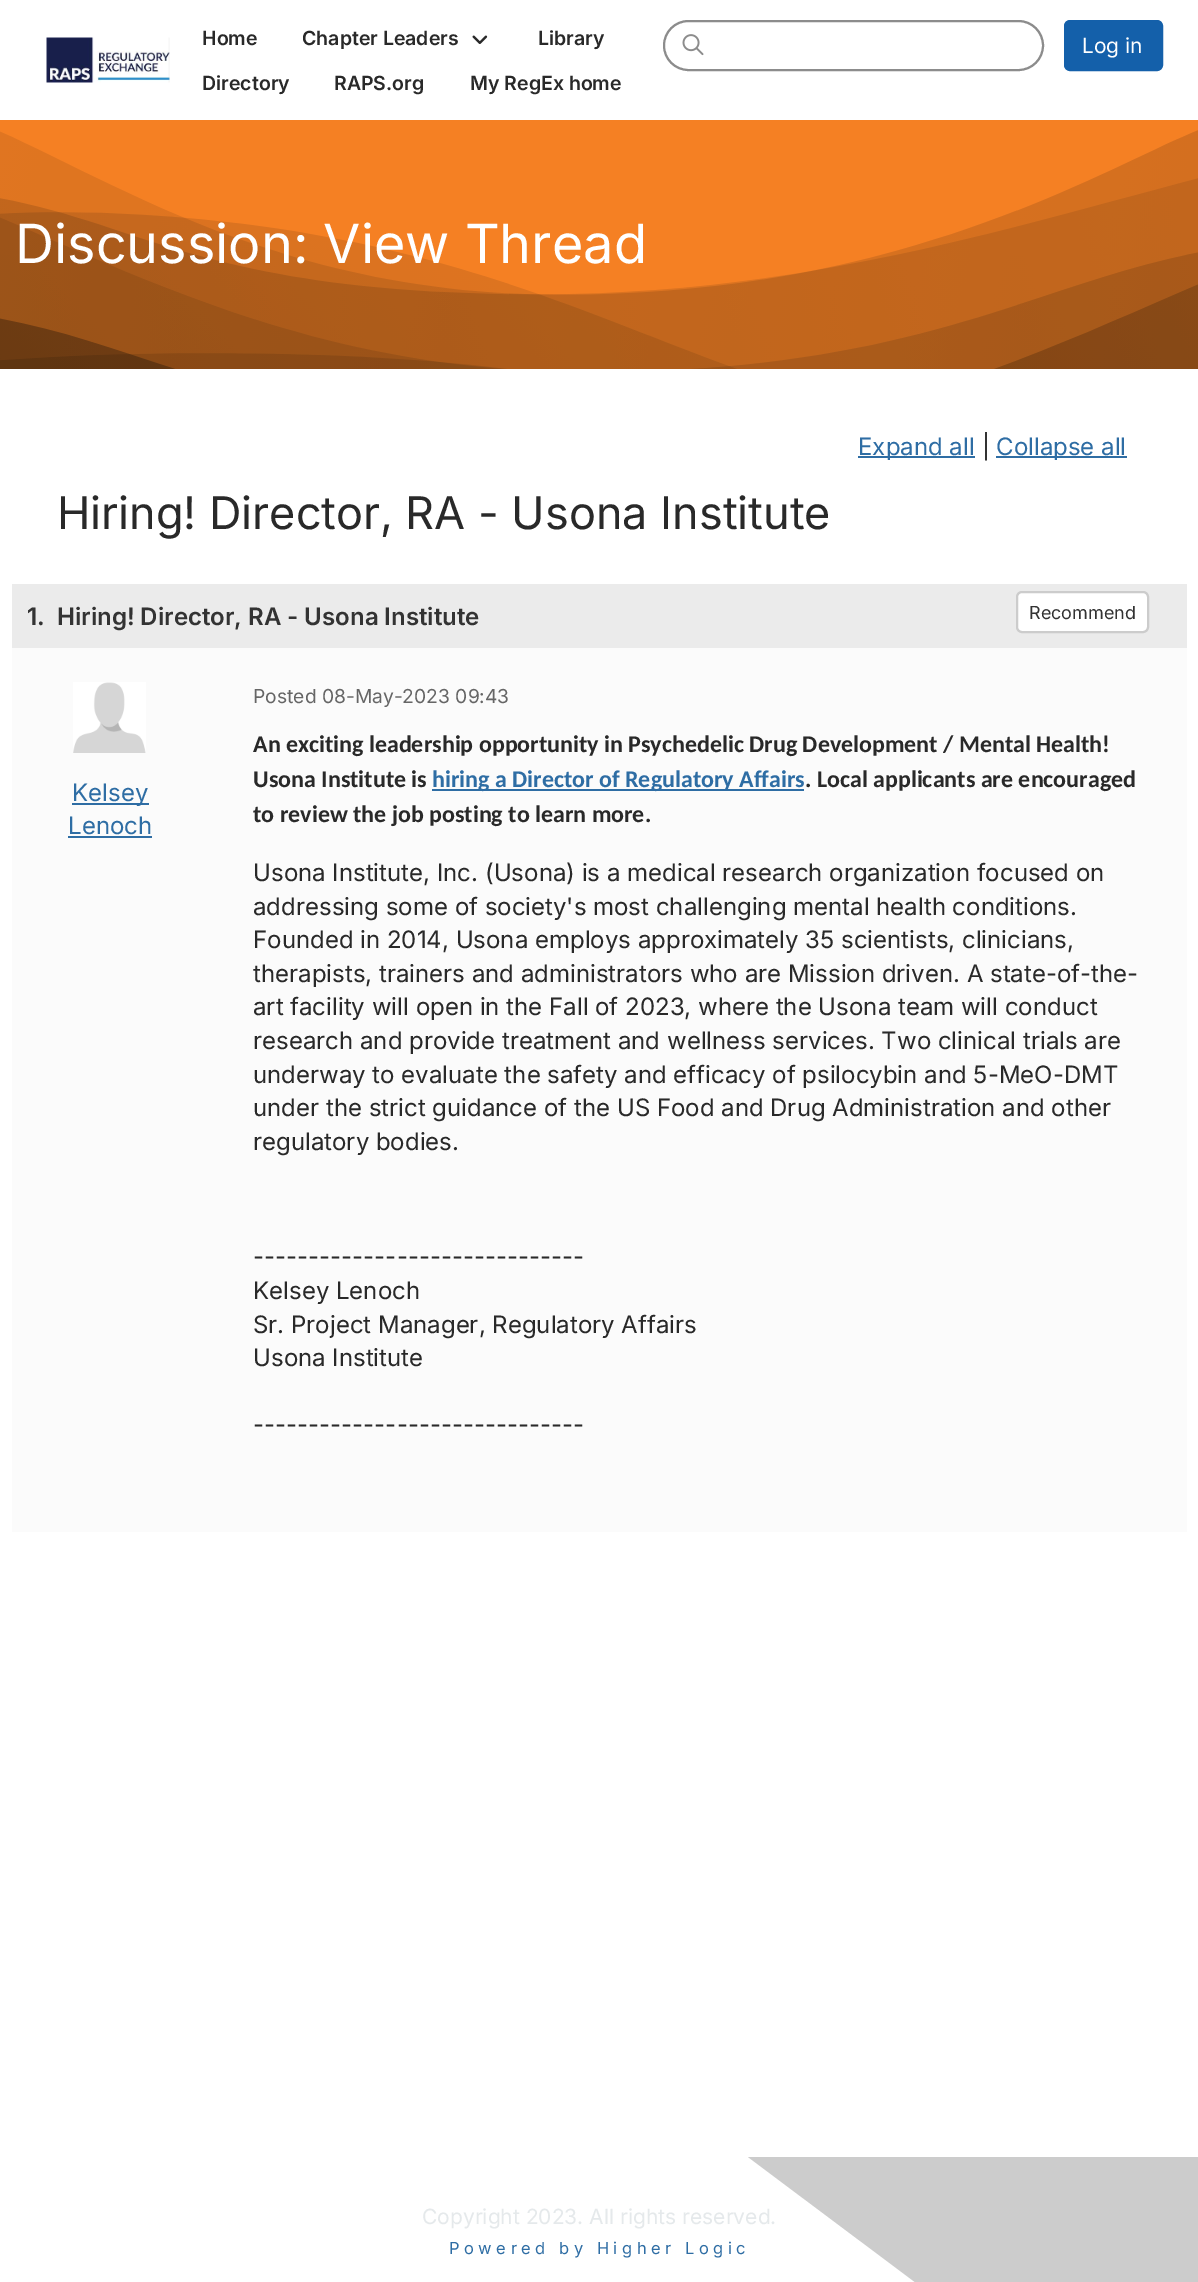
%!PS
<< /PageSize [1198 2282] >> setpagedevice
/rgb { 3 { 255 div 3 1 roll } repeat setrgbcolor } def
/font { [ exch dup neg 0 0 3 -1 roll 0 0 ] selectfont } def
/roundrect { 5 dict begin { /r /h /w /y /x } { exch def } forall
  x r add y moveto x w add y 2 copy h add r arct x w add y h add x 1 index r arct
  x y h add x y r arct x y 2 copy exch w add exch r arct closepath end } def
/picture { 5 dict begin { /h /w /y /x /name } { exch def } forall
  gsave x y translate w h scale
  w h 8 [w 0 0 h 0 0] name (r) file false 3 colorimage grestore end } def
0 2282 translate 1 -1 scale
4 setmiterlimit
255 255 255 rgb
0 0 1198 2282 rectfill
(img/1.rgb) 46 37 124 46 picture
(img/2.rgb) 472 35 16 9 picture
236 236 236 rgb
688 22 moveto 1018 22 lineto 1032 22 1042 33 1042 46 curveto 1042 51 1041 55 1039 58 curveto 1041 55 1043 50 1043 45 curveto 1043 32 1032 21 1019 21 curveto 689 21 lineto 681 21 674 25 670 30 curveto 674 25 681 22 688 22 curveto closepath fill
140 140 140 rgb
2 setlinewidth
664 21 379 49 24.5 roundrect stroke
(img/3.rgb) 682 34 22 22 picture
20 96 170 rgb
1065 21 97 49 5 roundrect gsave fill grestore
stroke
(img/4.rgb) 0 120 1198 249 picture
[
  [858 456 117 2 46 109 164]
  [996 456 131 2 46 109 164]
  [12 648 1175 884 251 251 251]
  [12 584 1175 64 235 235 235]
] { aload pop rgb rectfill } forall
255 255 255 rgb
1017 592 131 40 5 roundrect gsave fill grestore
204 204 204 rgb
stroke
(img/5.rgb) 73 682 73 71 picture
[
  [72 803 77 2 46 109 164]
  [68 836 84 2 46 109 164]
  [432 789 372 2 46 109 164]
] { aload pop rgb rectfill } forall
204 204 204 rgb
1198 2157 moveto 1198 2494 lineto 748 2157 lineto closepath fill
/Inter-SemiBold 19.5 font
41 41 41 rgb
[
  [(Home) 202 45]
  [(Chapter Leaders) 302 45]
  [(Library) 538 45]
  [(Directory) 202 90]
  [(RAPS.org) 334 90]
  [(My RegEx home) 470 90]
] { aload pop moveto show } forall
/Inter-Regular 21 font
255 255 255 rgb
1082 53 moveto (Log in) show
/Inter-Regular 54 font
15 263 moveto (Discussion: View Thread) show
/Inter-Regular 24 font
46 109 164 rgb
858 455 moveto (Expand all) show
51 51 51 rgb
982 455 moveto (|) show
46 109 164 rgb
996 455 moveto (Collapse all) show
/Inter-Regular 45 font
41 41 41 rgb
57 529 moveto (Hiring! Director, RA - Usona Institute) show
/Inter-SemiBold 24 font
51 51 51 rgb
27 625 moveto (1.) show
57 625 moveto (Hiring! Director, RA - Usona Institute) show
/Inter-Regular 18 font
1029 619 moveto (Recommend) show
/Inter-Regular 24 font
46 109 164 rgb
72 801 moveto (Kelsey) show
68 834 moveto (Lenoch) show
/Inter-Regular 19.25 font
102 102 102 rgb
253 703 moveto (Posted 08-May-2023 09:43) show
/Carlito-Bold 24 font
41 41 41 rgb
253 752 moveto (An exciting leadership opportunity in Psychedelic Drug Development / Mental Health!) show
253 787 moveto (Usona Institute is) show
46 109 164 rgb
432 787 moveto (hiring a Director of Regulatory Affairs) show
41 41 41 rgb
805 787 moveto (. Local applicants are encouraged) show
253 822 moveto (to review the job posting to learn more.) show
/Inter-Regular 24 font
[
  [(Usona Institute, Inc. \(Usona\) is a medical research organization focused on) 253 881]
  [(addressing some of society's most challenging mental health conditions.) 253 915]
  [(Founded in 2014, Usona employs approximately 35 scientists, clinicians,) 253 948]
  [(therapists, trainers and administrators who are Mission driven. A state-of-the-) 253 982]
  [(art facility will open in the Fall of 2023, where the Usona team will conduct) 253 1015]
  [(research and provide treatment and wellness services. Two clinical trials are) 253 1049]
  [(underway to evaluate the safety and efficacy of psilocybin and 5-MeO-DMT) 253 1083]
  [(under the strict guidance of the US Food and Drug Administration and other) 253 1116]
  [(regulatory bodies.) 253 1150]
  [(------------------------------) 253 1265]
  [(Kelsey Lenoch) 253 1299]
  [(Sr. Project Manager, Regulatory Affairs) 253 1333]
  [(Usona Institute) 253 1366]
  [(------------------------------) 253 1433]
] { aload pop moveto show } forall
/Inter-Regular 21 font
229 233 235 rgb
422 2224 moveto (Copyright 2023. All rights reserved.) show
/Inter-Regular 16.5 font
46 109 164 rgb
449 2254 moveto 4.5 0 (Powered by Higher Logic) ashow
showpage
